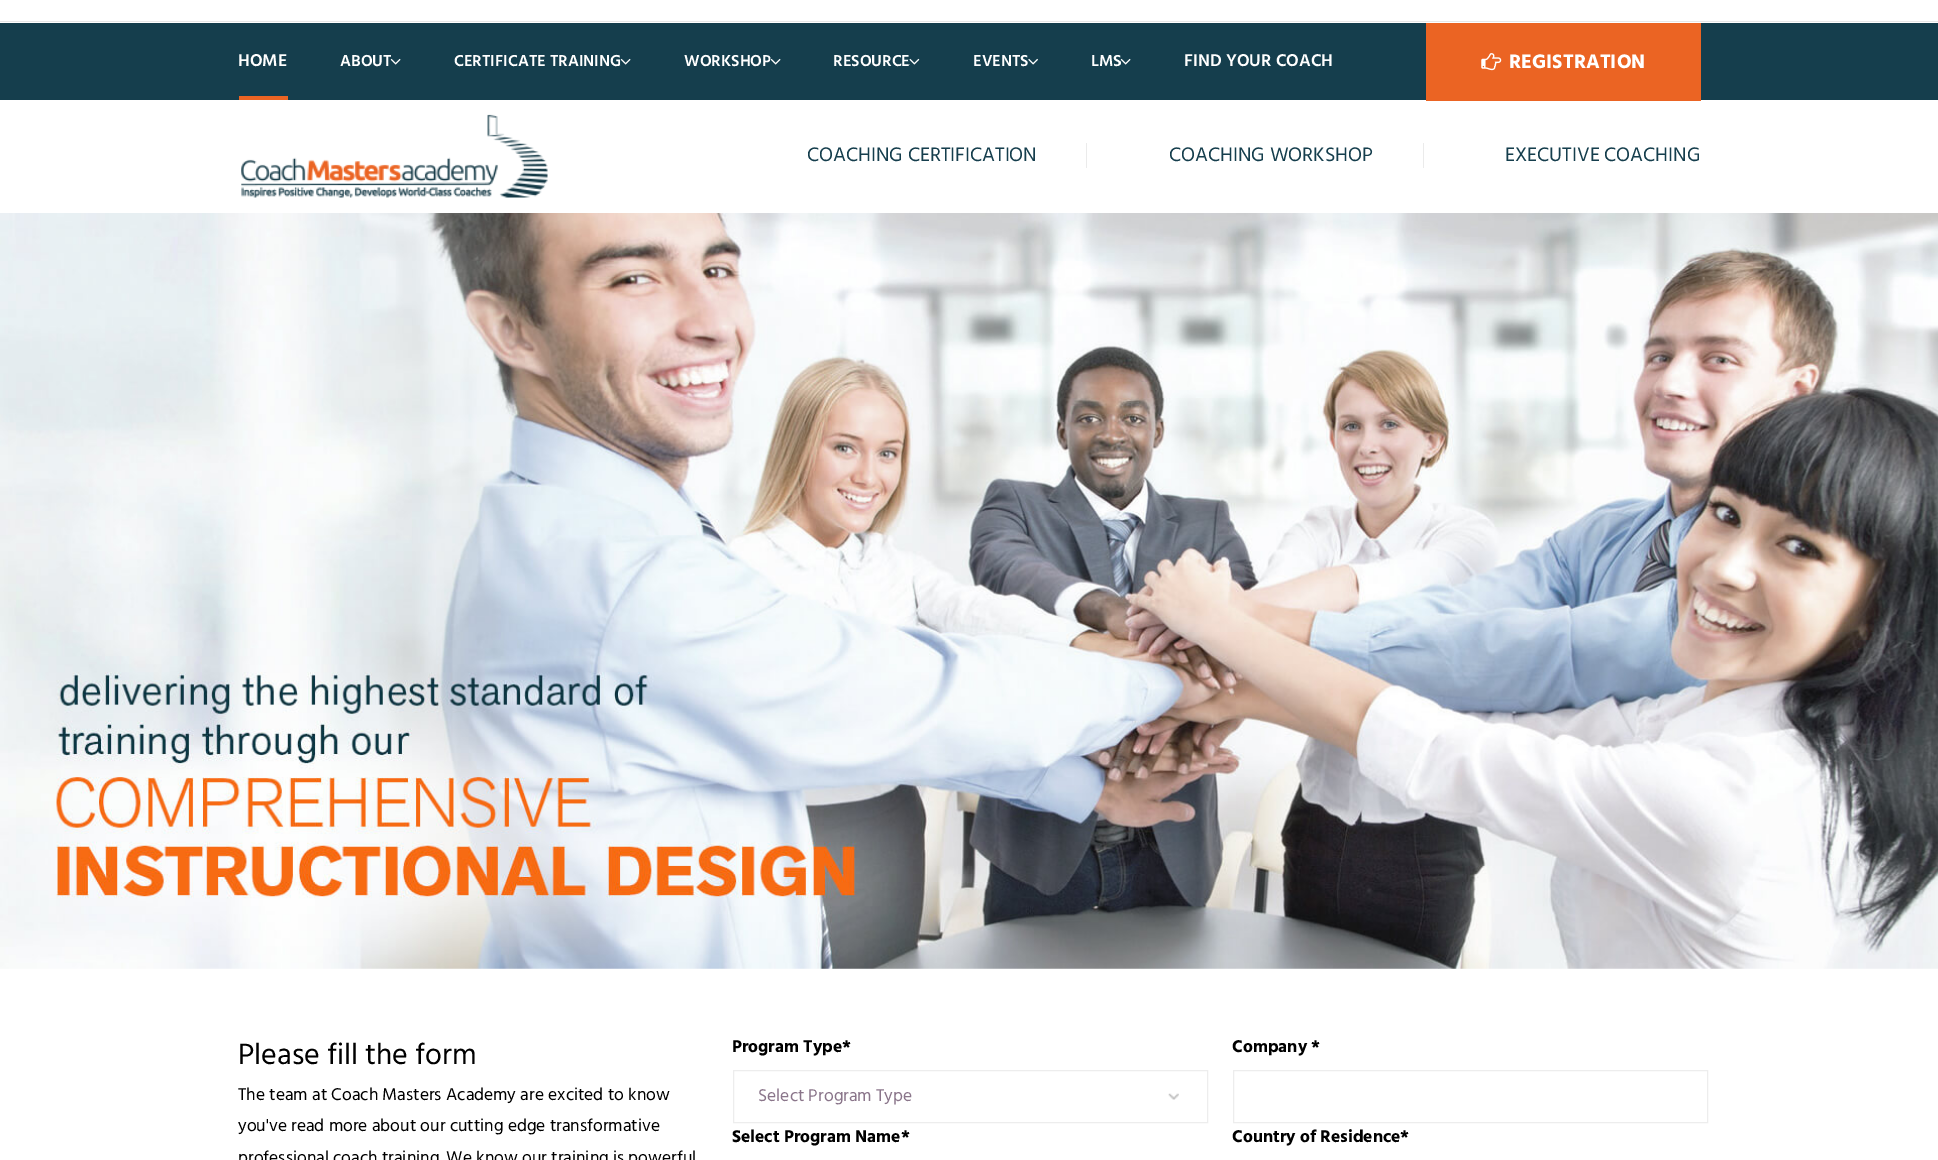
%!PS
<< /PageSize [1938 1160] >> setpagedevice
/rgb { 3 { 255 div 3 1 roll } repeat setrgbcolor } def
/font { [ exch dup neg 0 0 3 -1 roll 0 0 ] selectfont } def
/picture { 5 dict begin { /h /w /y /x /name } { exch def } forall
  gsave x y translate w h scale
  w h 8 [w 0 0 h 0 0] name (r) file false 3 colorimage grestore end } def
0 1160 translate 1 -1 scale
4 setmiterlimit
255 255 255 rgb
0 0 1938 1160 rectfill
[
  [0 21 1938 1 231 231 231]
  [0 23 1938 77 21 62 77]
  [239 96 49 4 235 100 35]
] { aload pop rgb rectfill } forall
(img/5.rgb) 1028 58 10 7 picture
1426 23 275 78 rectfill
(img/7.rgb) 1481 53 21 18 picture
(img/8.rgb) 241 114 307 84 picture
235 235 235 rgb
1086 143 1 25 rectfill
1423 143 1 25 rectfill
(img/9.rgb) 0 213 1938 756 picture
(img/10.rgb) 1168 1093 11 7 picture
237 237 237 rgb
733.5 1070.5 474 52 rectstroke
1233.5 1070.5 474 52 rectstroke
/HindMadurai-SemiBold 17.5 font
255 255 255 rgb
238 66 moveto (HOME) show
/HindMadurai-SemiBold 16.25 font
340 66 moveto (ABOUT) show
(img/1.rgb) 390 58 11 7 picture
454 66 moveto (CERTIFICATE TRAINING) show
(img/2.rgb) 620 58 11 7 picture
684 66 moveto (WORKSHOP) show
(img/3.rgb) 770 58 11 7 picture
833 66 moveto (RESOURCE) show
(img/4.rgb) 909 58 11 7 picture
973 66 moveto (EVENTS) show
1091 66 moveto (LMS) show
(img/6.rgb) 1120 58 11 7 picture
/HindMadurai-SemiBold 17.5 font
1184 66 moveto (FIND YOUR COACH) show
/HindMadurai-Bold 20 font
1509 68 moveto (REGISTRATION) show
/HindMadurai-Regular 20 font
21 62 77 rgb
[
  [(COACHING CERTIFICATION) 807 161]
  [(COACHING WORKSHOP) 1169 161]
  [(EXECUTIVE COACHING) 1505 161]
] { aload pop moveto show } forall
/HindMadurai-Regular 30 font
0 0 0 rgb
238 1064 moveto (Please fill the form) show
/HindMadurai-Regular 17.5 font
[
  [(The team at Coach Masters Academy are excited to know) 238 1100]
  [(you've read more about our cutting edge transformative) 238 1131]
  [(professional coach training. We know our training is powerful) 238 1163]
] { aload pop moveto show } forall
/HindMadurai-Bold 17.5 font
732 1052 moveto (Program Type*) show
/HindMadurai-Regular 17.5 font
138 117 138 rgb
758 1101 moveto (Select Program Type) show
/HindMadurai-Bold 17.5 font
0 0 0 rgb
[
  [(Select Program Name*) 732 1142]
  [(Company *) 1232 1052]
  [(Country of Residence*) 1232 1142]
] { aload pop moveto show } forall
showpage
